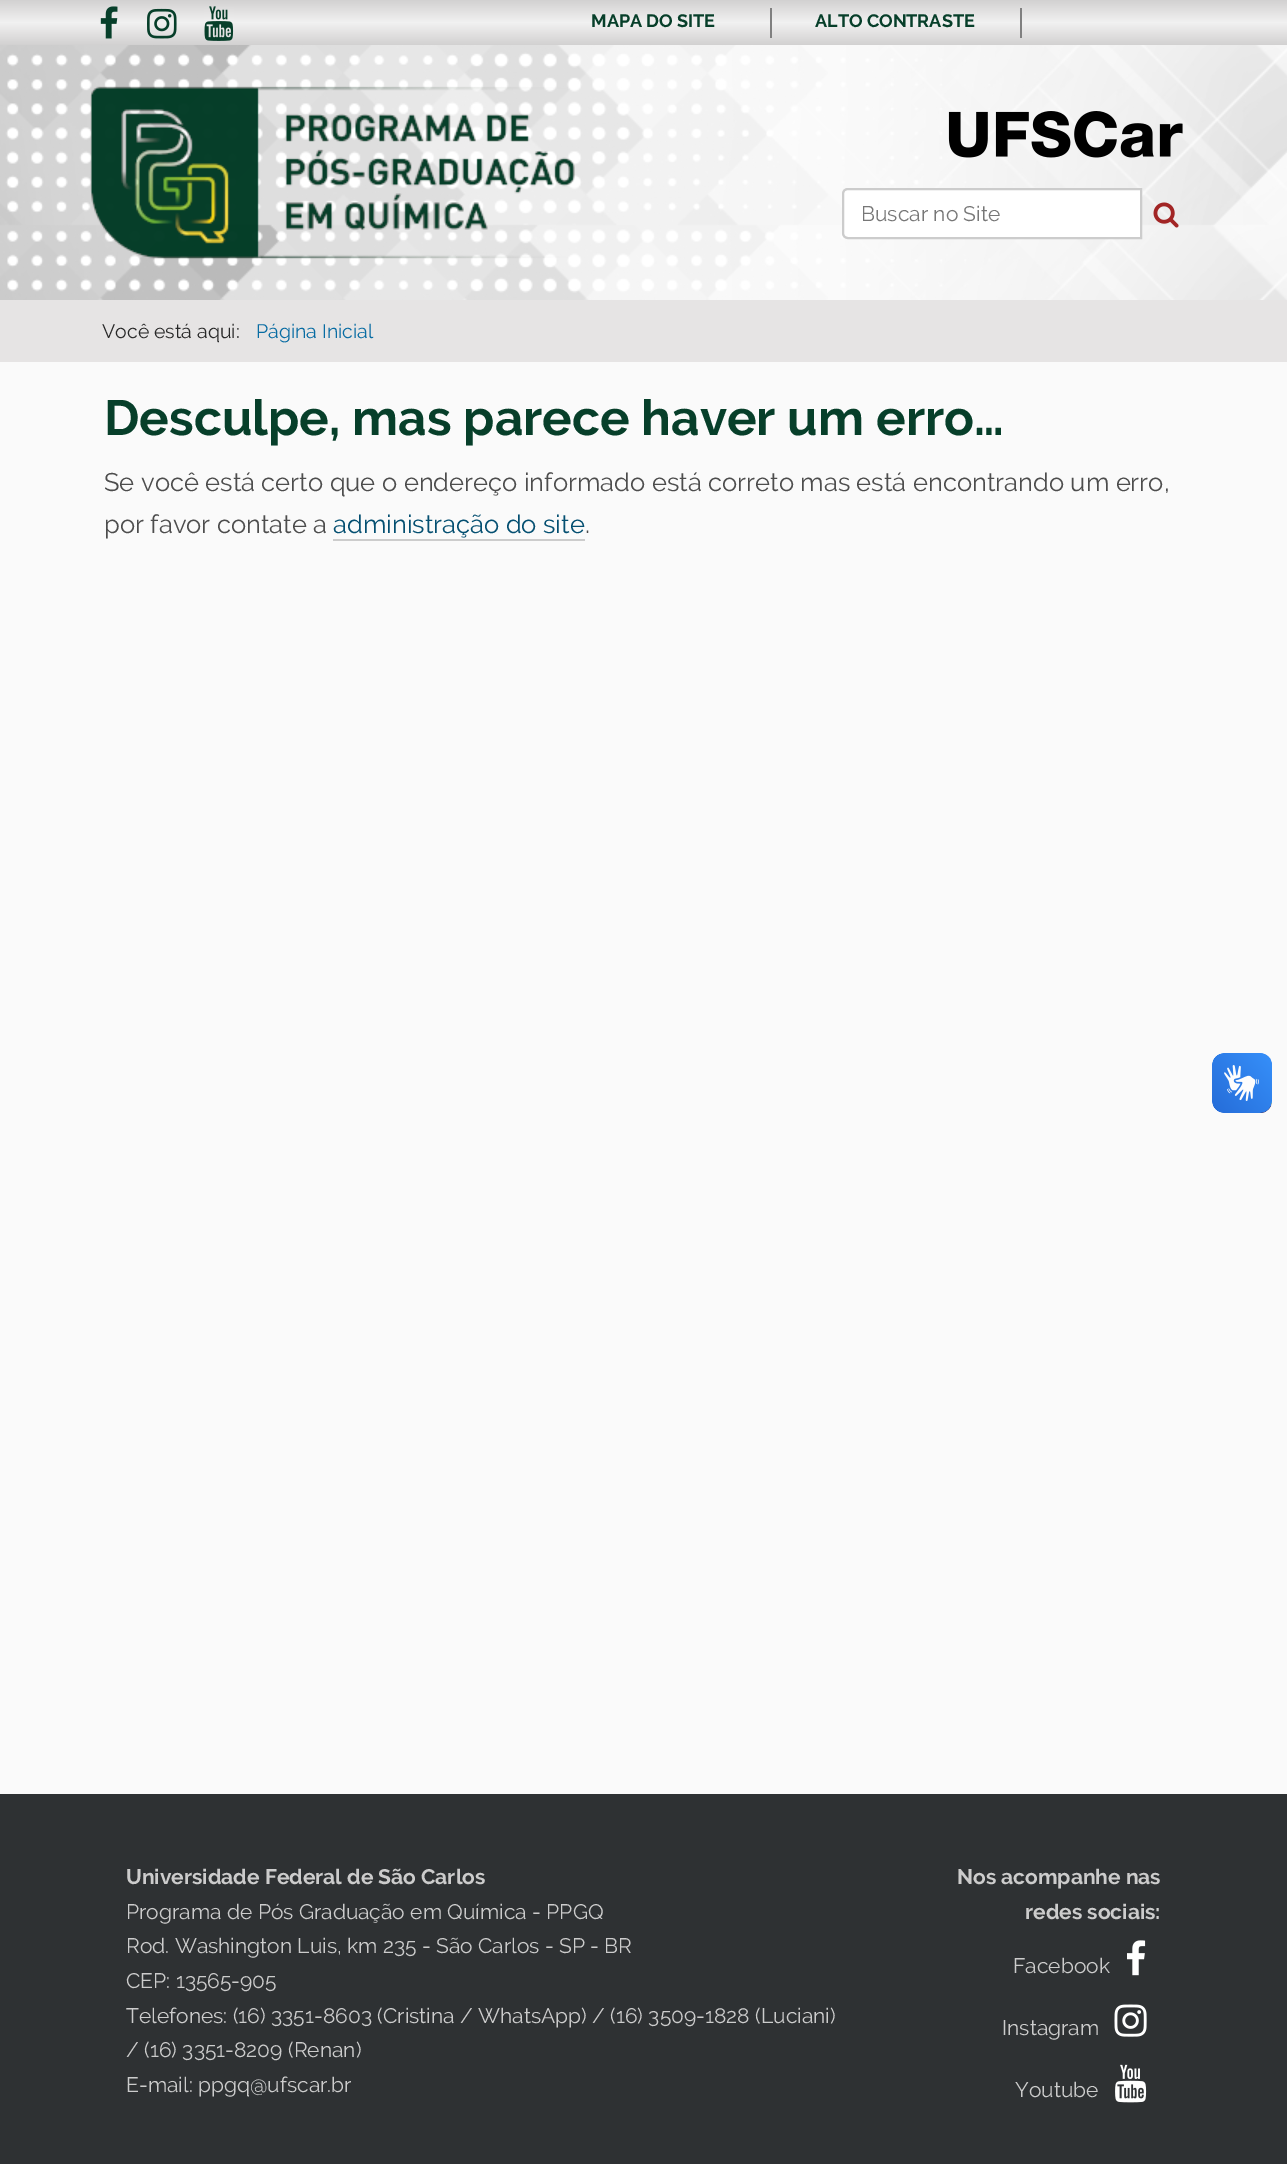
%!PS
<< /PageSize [1287 2164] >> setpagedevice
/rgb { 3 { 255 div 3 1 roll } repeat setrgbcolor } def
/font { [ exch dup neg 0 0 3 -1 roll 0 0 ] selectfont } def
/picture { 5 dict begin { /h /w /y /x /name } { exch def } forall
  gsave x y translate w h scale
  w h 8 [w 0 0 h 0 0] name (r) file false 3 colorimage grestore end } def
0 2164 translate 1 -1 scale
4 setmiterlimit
250 250 250 rgb
0 0 1287 2164 rectfill
gsave 0 0 moveto 1287 0 lineto 1287 45 lineto 0 45 lineto closepath clip newpath
<< /ShadingType 2 /ColorSpace /DeviceRGB /Coords [644 0 644 45] /Extend [true true] /Function << /FunctionType 3 /Domain [0 1] /Functions [<< /FunctionType 2 /Domain [0 1] /C0 [0.824 0.82 0.82] /C1 [0.886 0.882 0.882] /N 1 >> << /FunctionType 2 /Domain [0 1] /C0 [0.886 0.882 0.882] /C1 [0.945 0.945 0.945] /N 1 >> << /FunctionType 2 /Domain [0 1] /C0 [0.945 0.945 0.945] /C1 [0.886 0.882 0.882] /N 1 >> << /FunctionType 2 /Domain [0 1] /C0 [0.886 0.882 0.882] /C1 [0.824 0.82 0.82] /N 1 >>] /Bounds [0.25 0.5 0.75] /Encode [0 1 0 1 0 1 0 1] >> >> shfill grestore
(img/1.rgb) 100 6 18 33 picture
(img/2.rgb) 147 8 30 31 picture
(img/3.rgb) 204 6 30 35 picture
(img/4.rgb) 0 45 1287 255 picture
128 128 128 rgb
1020 8 2 30 rectfill
770 8 2 30 rectfill
(img/5.rgb) 948 111 235 47 picture
(img/6.rgb) 90 86 485 173 picture
255 255 255 rgb
848 189 moveto 1141 189 lineto 1141 238 lineto 848 238 lineto 845 238 843 236 843 233 curveto 843 194 lineto 843 191 845 189 848 189 curveto closepath gsave fill grestore
204 204 204 rgb
2 setlinewidth
stroke
(img/7.rgb) 1153 202 26 26 picture
230 228 228 rgb
0 300 1287 62 rectfill
204 204 204 rgb
333 539 252 2 rectfill
(img/8.rgb) 1212 1053 60 60 picture
(img/9.rgb) 1212 1053 60 60 picture
46 49 51 rgb
0 1794 1287 370 rectfill
(img/10.rgb) 1127 1940 19 36 picture
(img/11.rgb) 1114 2004 33 33 picture
(img/12.rgb) 1115 2064 32 39 picture
/Raleway-Bold 18 font
7 63 42 rgb
591 27 moveto (MAPA DO SITE) show
815 27 moveto (ALTO CONTRASTE) show
/Raleway-Regular 21 font
119 119 119 rgb
861 221 moveto (Buscar no Site) show
/Raleway-Regular 19.5 font
40 40 40 rgb
102 338 moveto (Você está aqui:) show
8 108 163 rgb
256 338 moveto (Página Inicial) show
/Raleway-Bold 49.5 font
7 63 42 rgb
104 435 moveto (Desculpe, mas parece haver um erro…) show
/Raleway-Regular 25.5 font
77 77 77 rgb
104 491 moveto (Se você está certo que o endereço informado está correto mas está encontrando um erro,) show
104 533 moveto (por favor contate a) show
4 79 113 rgb
333 533 moveto (administração do site) show
77 77 77 rgb
585 533 moveto (.) show
/Raleway-Bold 21 font
204 204 204 rgb
126 1884 moveto (Universidade Federal de São Carlos) show
/Raleway-Regular 21 font
[
  [(Programa de Pós Graduação em Química - PPGQ) 126 1919]
  [(Rod. Washington Luis, km 235 - São Carlos - SP - BR) 126 1953]
  [(CEP: 13565-905) 126 1988]
  [(Telefones: \(16\) 3351-8603 \(Cristina / WhatsApp\) / \(16\) 3509-1828 \(Luciani\)) 126 2023]
  [(/ \(16\) 3351-8209 \(Renan\)) 126 2057]
  [(E-mail: ppgq@ufscar.br) 126 2092]
] { aload pop moveto show } forall
/Raleway-Bold 21 font
957 1884 moveto (Nos acompanhe nas) show
1025 1919 moveto (redes sociais:) show
/Raleway-Regular 21 font
[
  [(Facebook) 1013 1973]
  [(Instagram) 1002 2035]
  [(Youtube) 1015 2097]
] { aload pop moveto show } forall
showpage
